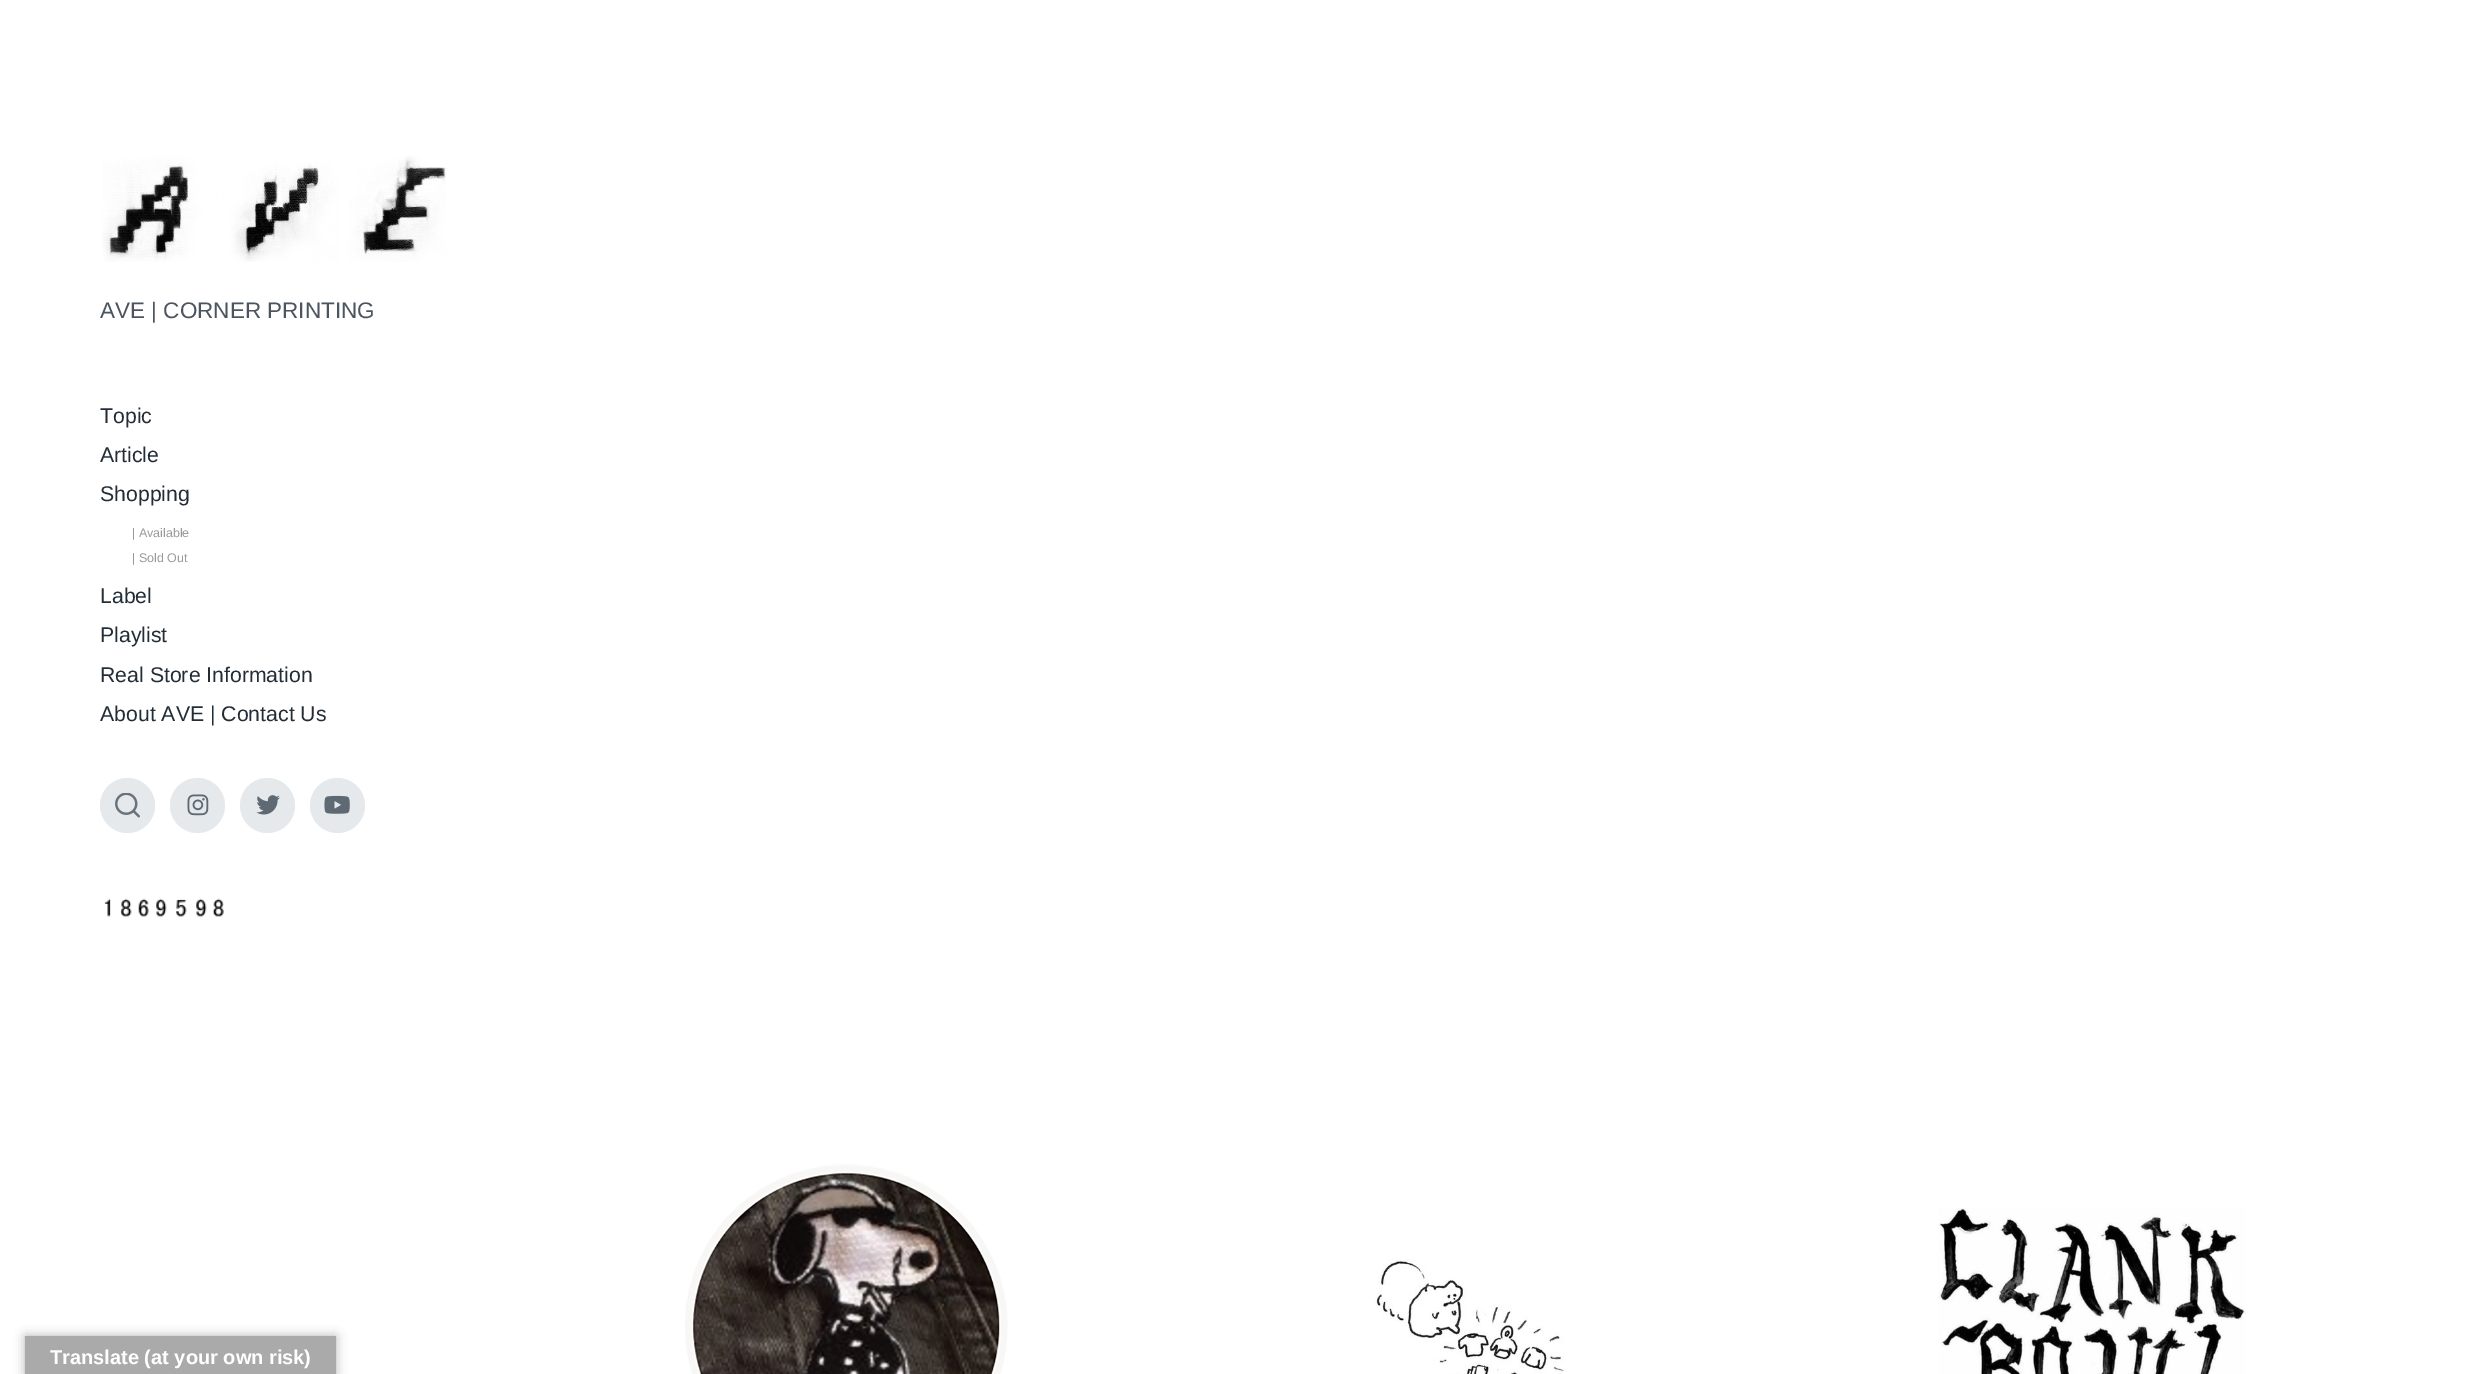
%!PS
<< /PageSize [2481 1374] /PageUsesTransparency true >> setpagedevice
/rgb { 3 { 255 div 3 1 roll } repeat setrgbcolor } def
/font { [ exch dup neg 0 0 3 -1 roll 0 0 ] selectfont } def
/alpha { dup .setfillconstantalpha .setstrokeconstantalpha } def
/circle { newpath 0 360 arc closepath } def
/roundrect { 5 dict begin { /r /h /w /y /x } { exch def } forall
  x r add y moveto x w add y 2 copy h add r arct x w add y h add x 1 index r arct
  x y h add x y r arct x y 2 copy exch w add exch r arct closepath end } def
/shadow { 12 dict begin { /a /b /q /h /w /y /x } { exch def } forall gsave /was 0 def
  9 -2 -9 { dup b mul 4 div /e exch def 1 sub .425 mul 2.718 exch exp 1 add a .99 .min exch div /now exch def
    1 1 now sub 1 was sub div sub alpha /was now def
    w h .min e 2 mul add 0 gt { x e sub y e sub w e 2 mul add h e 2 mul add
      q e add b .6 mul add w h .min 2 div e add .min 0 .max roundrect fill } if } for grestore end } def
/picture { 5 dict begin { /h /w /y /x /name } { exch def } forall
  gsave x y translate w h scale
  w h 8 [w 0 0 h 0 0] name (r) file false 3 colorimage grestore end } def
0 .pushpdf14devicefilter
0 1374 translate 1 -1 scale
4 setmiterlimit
255 255 255 rgb
0 0 2481 1374 rectfill
(img/1.rgb) 102 156 345 106 picture
230 233 236 rgb
127.5 805.5 27.5 circle fill
(img/2.rgb) 115 793 25 25 picture
197.5 805.5 27.5 circle fill
(img/3.rgb) 187 794 22 22 picture
267.5 805.5 27.5 circle fill
(img/4.rgb) 256 795 24 20 picture
337.5 805.5 27.5 circle fill
(img/5.rgb) 324 795 26 19 picture
(img/6.rgb) 104 898 120 19 picture
0 0 0 rgb
25 1336 311 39 0 5.5 0.3 shadow
170 170 170 rgb
25 1336 311 38 rectfill
(img/7.rgb) 685 1164 323 210 picture
(img/8.rgb) 1375 1259 189 115 picture
(img/9.rgb) 1938 1208 308 166 picture
/LiberationSans-Regular 22.5 font
75 85 95 rgb
100 318 moveto (AVE | CORNER PRINTING) show
/LiberationSans-Regular 21.25 font
35 45 55 rgb
[
  [(Topic) 100 423]
  [(Article) 100 462]
  [(Shopping) 100 501]
] { aload pop moveto show } forall
/LiberationSans-Regular 12.5 font
153 153 153 rgb
132 537 moveto (| Available) show
132 562 moveto (| Sold Out) show
/LiberationSans-Regular 21.25 font
35 45 55 rgb
[
  [(Label) 100 603]
  [(Playlist) 100 642]
  [(Real Store Information) 100 682]
  [(About AVE | Contact Us) 100 721]
] { aload pop moveto show } forall
/LiberationSans-Bold 20 font
255 255 255 rgb
50 1364 moveto (Translate \(at your own risk\)) show
.poppdf14devicefilter showpage
